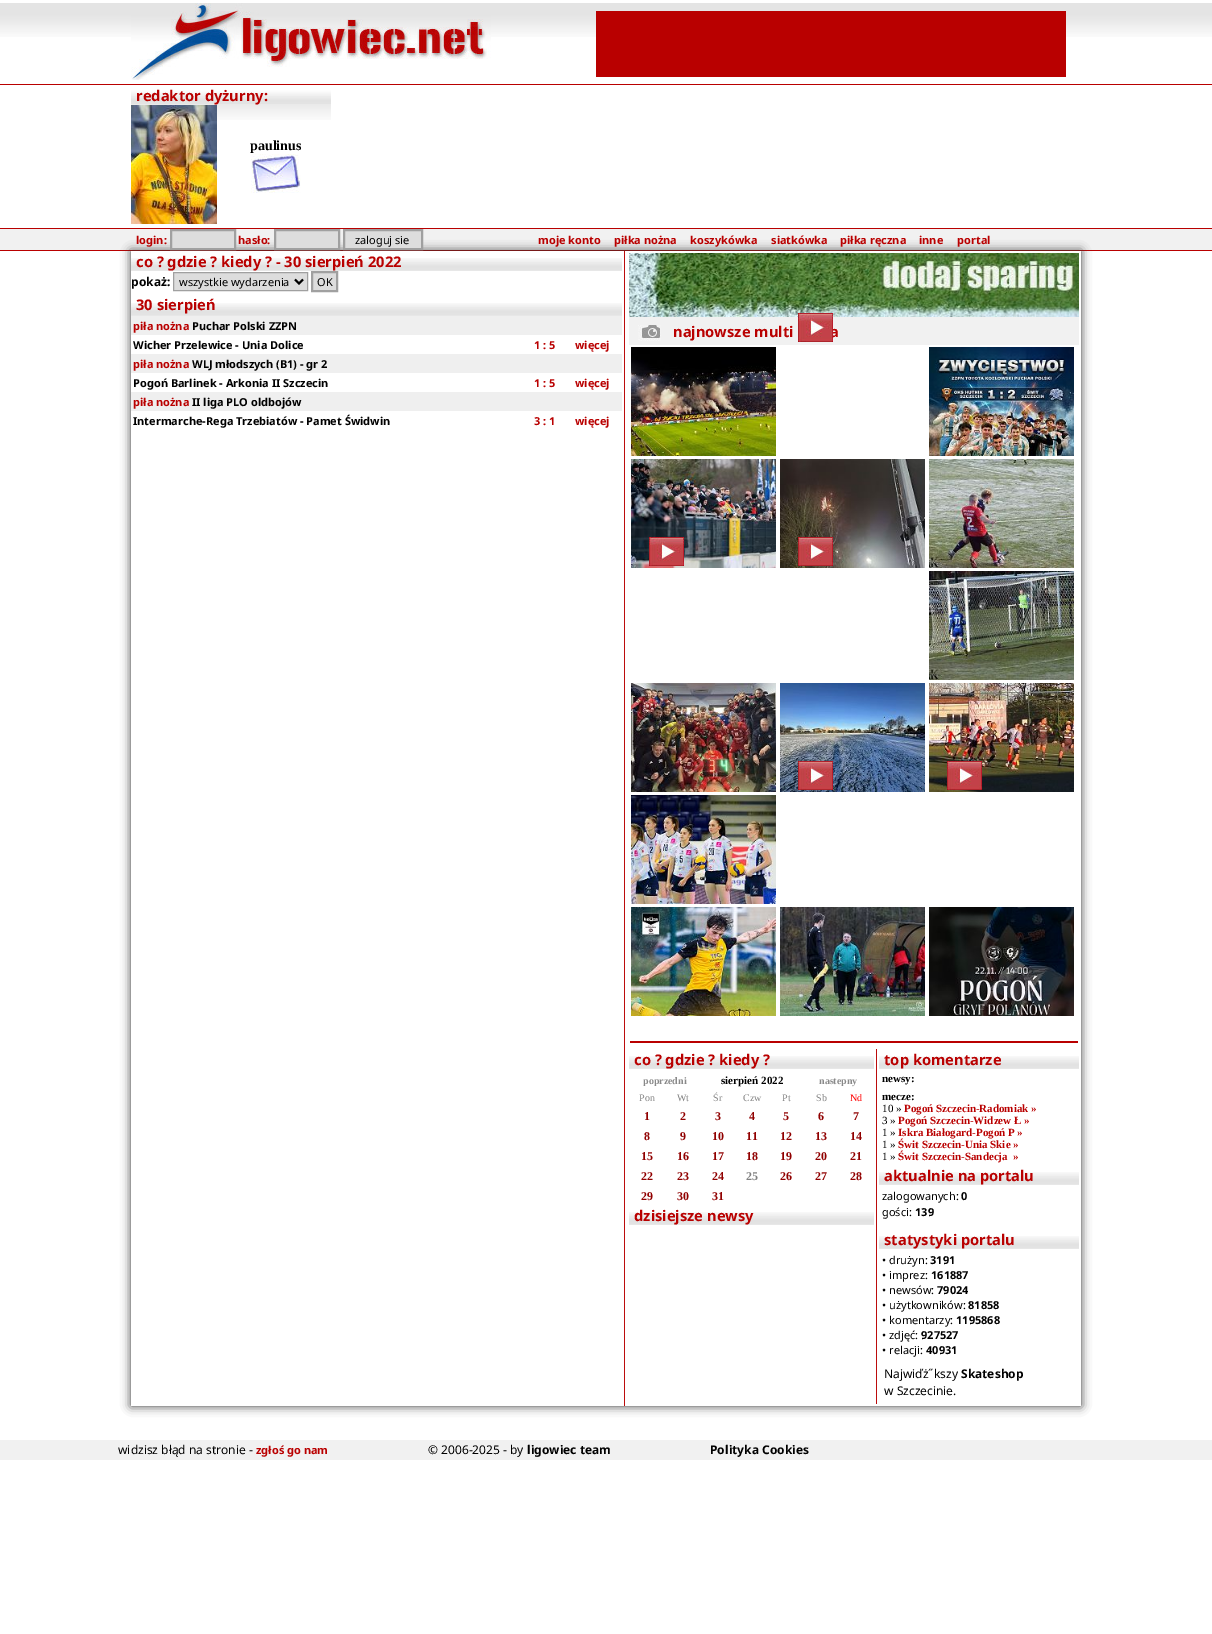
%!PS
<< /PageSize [1212 1634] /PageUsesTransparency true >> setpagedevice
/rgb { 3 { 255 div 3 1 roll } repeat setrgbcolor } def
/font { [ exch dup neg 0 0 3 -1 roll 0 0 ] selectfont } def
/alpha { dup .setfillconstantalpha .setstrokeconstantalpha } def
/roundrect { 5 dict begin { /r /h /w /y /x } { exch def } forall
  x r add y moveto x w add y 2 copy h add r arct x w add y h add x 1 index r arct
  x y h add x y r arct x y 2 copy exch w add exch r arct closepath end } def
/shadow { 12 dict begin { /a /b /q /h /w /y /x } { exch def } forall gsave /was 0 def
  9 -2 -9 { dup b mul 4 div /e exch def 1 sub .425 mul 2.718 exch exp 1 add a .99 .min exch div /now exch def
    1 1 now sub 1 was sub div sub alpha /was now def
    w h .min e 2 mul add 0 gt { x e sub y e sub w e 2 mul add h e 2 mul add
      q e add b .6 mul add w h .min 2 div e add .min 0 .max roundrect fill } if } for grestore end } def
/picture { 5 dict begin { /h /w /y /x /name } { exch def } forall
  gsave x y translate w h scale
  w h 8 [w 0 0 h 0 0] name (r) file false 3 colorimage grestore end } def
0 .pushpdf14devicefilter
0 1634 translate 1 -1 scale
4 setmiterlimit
255 255 255 rgb
0 0 1212 1634 rectfill
(img/1.rgb) 0 3 1212 34 picture
(img/2.rgb) 131 3 360 77 picture
185 0 0 rgb
596 11 470 66 rectfill
0 84 1212 1 rectfill
(img/3.rgb) 131 104 200 16 picture
(img/4.rgb) 131 85 200 19 picture
(img/5.rgb) 131 105 86 119 picture
(img/6.rgb) 251 154 50 39 picture
[
  [0 229 1212 21 241 241 241]
  [0 228 1212 1 185 0 0]
  [0 250 1212 1 185 0 0]
] { aload pop rgb rectfill } forall
gsave
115 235 moveto 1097 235 lineto 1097 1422 lineto 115 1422 lineto closepath 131 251 moveto 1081 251 lineto 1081 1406 lineto 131 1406 lineto closepath eoclip newpath
51 51 51 rgb
131 251 950 1155 0 5 1 shadow
grestore
221 221 221 rgb
171 230 moveto 235 230 lineto 235 249 lineto 171 249 lineto closepath gsave fill grestore
160 160 160 rgb
2 setlinewidth
stroke
221 221 221 rgb
275 230 moveto 339 230 lineto 339 249 lineto 275 249 lineto closepath gsave fill grestore
160 160 160 rgb
stroke
221 221 221 rgb
344 230 moveto 422 230 lineto 422 249 lineto 344 249 lineto closepath gsave fill grestore
160 160 160 rgb
stroke
(img/7.rgb) 131 258 491 13 picture
221 221 221 rgb
173.5 272.5 moveto 307.5 272.5 lineto 307.5 290.5 lineto 173.5 290.5 lineto closepath gsave fill grestore
160 160 160 rgb
1 setlinewidth
stroke
0 0 0 rgb
2 setlinewidth
295 279.5 moveto 299 283.5 lineto 303 279.5 lineto stroke
221 221 221 rgb
312 272 moveto 337 272 lineto 337 291 lineto 312 291 lineto closepath gsave fill grestore
160 160 160 rgb
stroke
(img/7.rgb) 131 303 491 13 picture
[
  [131 316 491 19 239 239 239]
  [131 354 491 19 239 239 239]
  [131 392 491 19 239 239 239]
  [624 251 1 1155 188 12 12]
] { aload pop rgb rectfill } forall
(img/8.rgb) 629 253 450 64 picture
(img/10.rgb) 631 347 145 109 picture
(img/11.rgb) 929 347 145 109 picture
241 241 241 rgb
629 317 450 28 rectfill
(img/12.rgb) 638 325 23 16 picture
(img/13.rgb) 631 459 145 109 picture
(img/14.rgb) 780 459 145 109 picture
(img/15.rgb) 929 459 145 109 picture
(img/9.rgb) 649 537 35 29 picture
(img/9.rgb) 798 537 35 29 picture
(img/16.rgb) 929 571 145 109 picture
(img/17.rgb) 631 683 145 109 picture
(img/18.rgb) 780 683 145 109 picture
(img/19.rgb) 929 683 145 109 picture
(img/9.rgb) 798 761 35 29 picture
(img/9.rgb) 947 761 35 29 picture
(img/20.rgb) 631 795 145 109 picture
(img/21.rgb) 631 907 145 109 picture
(img/22.rgb) 780 907 145 109 picture
(img/23.rgb) 929 907 145 109 picture
185 0 0 rgb
630 1041 448 2 rectfill
(img/24.rgb) 629 1056 245 13 picture
(img/24.rgb) 629 1212 245 13 picture
188 12 12 rgb
876 1049 1 355 rectfill
(img/25.rgb) 879 1056 200 13 picture
(img/25.rgb) 879 1172 200 13 picture
(img/25.rgb) 879 1236 200 13 picture
241 241 241 rgb
0 1440 1212 20 rectfill
/NotoSans-Bold 14.7 font
185 0 0 rgb
136 101 moveto (redaktor dyżurny:) show
/LiberationSerif-Bold 14 font
0 0 0 rgb
250 150 moveto (paulinus) show
/NotoSans-Bold 11 font
185 0 0 rgb
136 244 moveto (login:) show
238 244 moveto (hasło:) show
/NotoSans-Regular 11 font
0 0 0 rgb
355 244 moveto (zaloguj sie) show
/NotoSans-Bold 11 font
185 0 0 rgb
[
  [(moje konto) 538 244]
  [(piłka nożna) 614 244]
  [(koszykówka) 690 244]
  [(siatkówka) 771 244]
  [(piłka ręczna) 840 244]
  [(inne) 919 244]
  [(portal) 957 244]
] { aload pop moveto show } forall
/NotoSans-Bold 14.7 font
136 267 moveto (co ? gdzie ? kiedy ? - 30 sierpień 2022) show
/NotoSans-Bold 12 font
0 0 0 rgb
131 286 moveto (pokaż:) show
/NotoSans-Regular 11 font
179 286 moveto (wszystkie wydarzenia) show
317 286 moveto (OK) show
/NotoSans-Bold 14.7 font
185 0 0 rgb
136 310 moveto (30 sierpień) show
/NotoSans-Bold 11 font
133 330 moveto (piła nożna) show
0 0 0 rgb
192 330 moveto (Puchar Polski ZZPN) show
133 349 moveto (Wicher Przelewice - Unia Dolice) show
185 0 0 rgb
[
  [(1 : 5) 534 349]
  [(więcej) 575 349]
  [(piła nożna) 133 368]
] { aload pop moveto show } forall
0 0 0 rgb
192 368 moveto (WLJ młodszych \(B1\) - gr 2) show
133 387 moveto (Pogoń Barlinek - Arkonia II Szczecin) show
185 0 0 rgb
[
  [(1 : 5) 534 387]
  [(więcej) 575 387]
  [(piła nożna) 133 406]
] { aload pop moveto show } forall
0 0 0 rgb
192 406 moveto (II liga PLO oldbojów) show
133 425 moveto (Intermarche-Rega Trzebiatów - Pamet Świdwin) show
185 0 0 rgb
534 425 moveto (3 : 1) show
575 425 moveto (więcej) show
/NotoSans-Bold 14.7 font
673 337 moveto (najnowsze multi) show
830 337 moveto (a) show
(img/9.rgb) 798 313 35 29 picture
634 1065 moveto (co ? gdzie ? kiedy ?) show
/LiberationSerif-Bold 10 font
137 137 137 rgb
643 1084 moveto (poprzedni) show
/LiberationSerif-Bold 11 font
0 0 0 rgb
721 1084 moveto (sierpień 2022) show
/LiberationSerif-Bold 10 font
137 137 137 rgb
819 1084 moveto (nastepny) show
/LiberationSerif-Regular 10 font
128 128 128 rgb
[
  [(Pon) 639 1101]
  [(Wt) 677 1101]
  [(Śr) 713 1101]
  [(Czw) 743 1101]
  [(Pt) 782 1101]
  [(Sb) 816 1101]
] { aload pop moveto show } forall
255 0 0 rgb
850 1101 moveto (Nd) show
/LiberationSerif-Bold 12 font
144 0 0 rgb
[
  [(1) 644 1120]
  [(2) 680 1120]
  [(3) 715 1120]
  [(4) 749 1120]
  [(5) 783 1120]
  [(6) 818 1120]
  [(7) 853 1120]
  [(8) 644 1140]
  [(9) 680 1140]
  [(10) 712 1140]
  [(11) 746 1140]
  [(12) 780 1140]
  [(13) 815 1140]
  [(14) 850 1140]
  [(15) 641 1160]
  [(16) 677 1160]
  [(17) 712 1160]
  [(18) 746 1160]
  [(19) 780 1160]
  [(20) 815 1160]
  [(21) 850 1160]
  [(22) 641 1180]
  [(23) 677 1180]
  [(24) 712 1180]
] { aload pop moveto show } forall
128 128 128 rgb
746 1180 moveto (25) show
144 0 0 rgb
[
  [(26) 780 1180]
  [(27) 815 1180]
  [(28) 850 1180]
  [(29) 641 1200]
  [(30) 677 1200]
  [(31) 712 1200]
] { aload pop moveto show } forall
/NotoSans-Bold 14.7 font
185 0 0 rgb
634 1221 moveto (dzisiejsze newsy) show
884 1065 moveto (top komentarze) show
/LiberationSerif-Bold 11 font
0 0 0 rgb
882 1082 moveto (newsy:) show
882 1100 moveto (mecze:) show
/LiberationSerif-Regular 11 font
882 1112 moveto (10 ») show
/LiberationSerif-Bold 11 font
185 0 0 rgb
904 1112 moveto (Pogoń Szczecin-Radomiak ») show
/LiberationSerif-Regular 11 font
0 0 0 rgb
882 1124 moveto (3 ») show
/LiberationSerif-Bold 11 font
185 0 0 rgb
898 1124 moveto (Pogoń Szczecin-Widzew Ł ») show
/LiberationSerif-Regular 11 font
0 0 0 rgb
882 1136 moveto (1 ») show
/LiberationSerif-Bold 11 font
185 0 0 rgb
898 1136 moveto (Iskra Białogard-Pogoń P ») show
/LiberationSerif-Regular 11 font
0 0 0 rgb
882 1148 moveto (1 ») show
/LiberationSerif-Bold 11 font
185 0 0 rgb
898 1148 moveto (Świt Szczecin-Unia Skie ») show
/LiberationSerif-Regular 11 font
0 0 0 rgb
882 1160 moveto (1 ») show
/LiberationSerif-Bold 11 font
185 0 0 rgb
898 1160 moveto (Świt Szczecin-Sandecja  ») show
/NotoSans-Bold 14.7 font
884 1181 moveto (aktualnie na portalu) show
/NotoSans-Regular 11 font
0 0 0 rgb
882 1200 moveto (zalogowanych:) show
/NotoSans-Bold 11 font
961 1200 moveto (0) show
/NotoSans-Regular 11 font
882 1216 moveto (gości:) show
/NotoSans-Bold 11 font
915 1216 moveto (139) show
/NotoSans-Bold 14.7 font
185 0 0 rgb
884 1245 moveto (statystyki portalu) show
/NotoSans-Regular 11 font
0 0 0 rgb
882 1264 moveto (• drużyn:) show
/NotoSans-Bold 11 font
930 1264 moveto (3191) show
/NotoSans-Regular 11 font
882 1279 moveto (• imprez:) show
/NotoSans-Bold 11 font
931 1279 moveto (161887) show
/NotoSans-Regular 11 font
882 1294 moveto (• newsów:) show
/NotoSans-Bold 11 font
937 1294 moveto (79024) show
/NotoSans-Regular 11 font
882 1309 moveto (• użytkowników:) show
/NotoSans-Bold 11 font
968 1309 moveto (81858) show
/NotoSans-Regular 11 font
882 1324 moveto (• komentarzy:) show
/NotoSans-Bold 11 font
956 1324 moveto (1195868) show
/NotoSans-Regular 11 font
882 1339 moveto (• zdjęć:) show
/NotoSans-Bold 11 font
921 1339 moveto (927527) show
/NotoSans-Regular 11 font
882 1354 moveto (• relacji:) show
/NotoSans-Bold 11 font
926 1354 moveto (40931) show
/NotoSans-Regular 12 font
884 1378 moveto (Najwiďż˝kszy) show
/NotoSans-Bold 12 font
961 1378 moveto (Skateshop) show
/NotoSans-Regular 12 font
884 1395 moveto (w Szczecinie.) show
118 1454 moveto (widzisz błąd na stronie -) show
/NotoSans-Bold 11 font
185 0 0 rgb
256 1454 moveto (zgłoś go nam) show
/NotoSans-Regular 12 font
0 0 0 rgb
428 1454 moveto (© 2006-2025 - by) show
/NotoSans-Bold 12 font
527 1454 moveto (ligowiec team) show
710 1454 moveto (Polityka Cookies) show
.poppdf14devicefilter showpage
